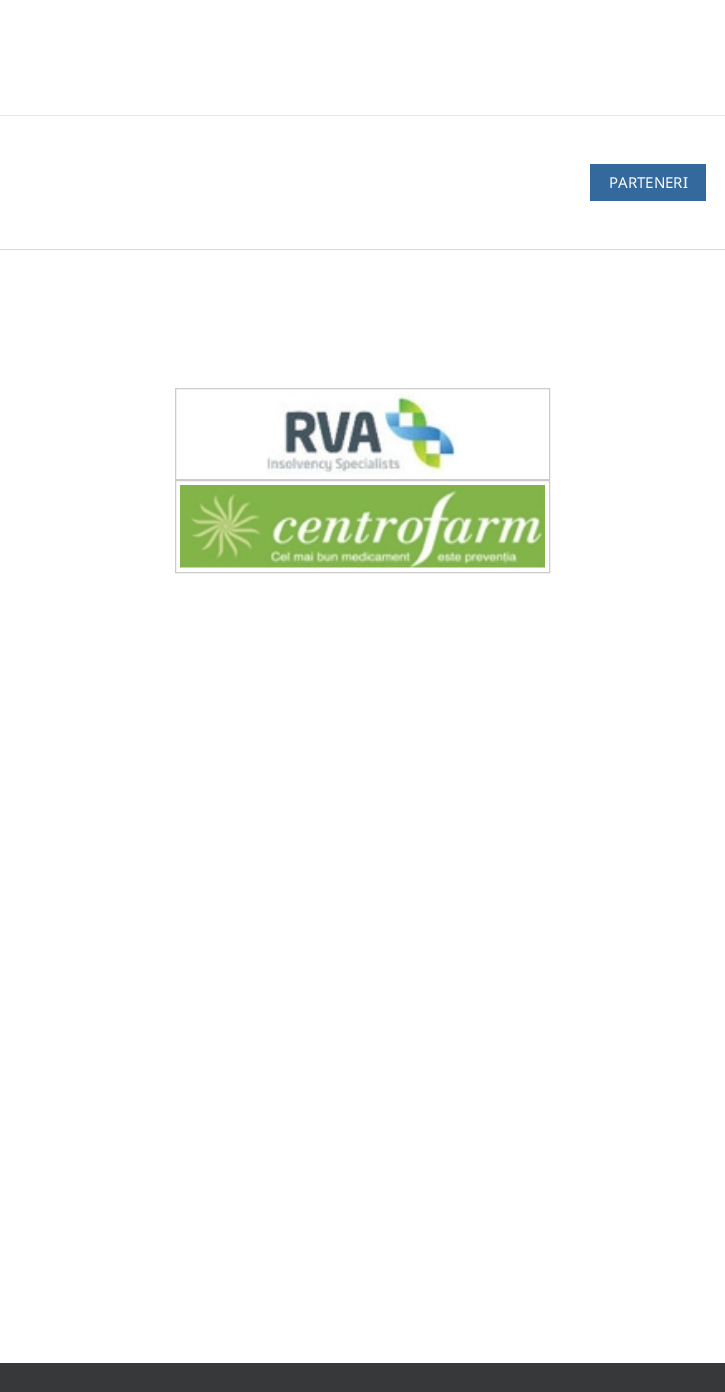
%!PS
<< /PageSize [725 1392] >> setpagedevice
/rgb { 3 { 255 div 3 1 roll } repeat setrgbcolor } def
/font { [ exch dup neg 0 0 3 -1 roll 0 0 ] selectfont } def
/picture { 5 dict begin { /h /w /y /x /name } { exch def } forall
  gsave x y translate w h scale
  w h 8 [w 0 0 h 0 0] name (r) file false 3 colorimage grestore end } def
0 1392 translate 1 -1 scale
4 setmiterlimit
255 255 255 rgb
0 0 725 1392 rectfill
[
  [0 115 725 1 231 231 231]
  [0 249 725 1 218 218 218]
  [590 164 116 37 51 105 157]
] { aload pop rgb rectfill } forall
204 204 204 rgb
175.5 388.5 374 91 rectstroke
(img/1.rgb) 266 392 192 83 picture
175.5 480.5 374 92 rectstroke
(img/2.rgb) 180 485 365 83 picture
54 56 57 rgb
0 1363 725 29 rectfill
/NotoSans-Regular 15 font
255 255 255 rgb
609 188 moveto (PARTENERI) show
showpage
